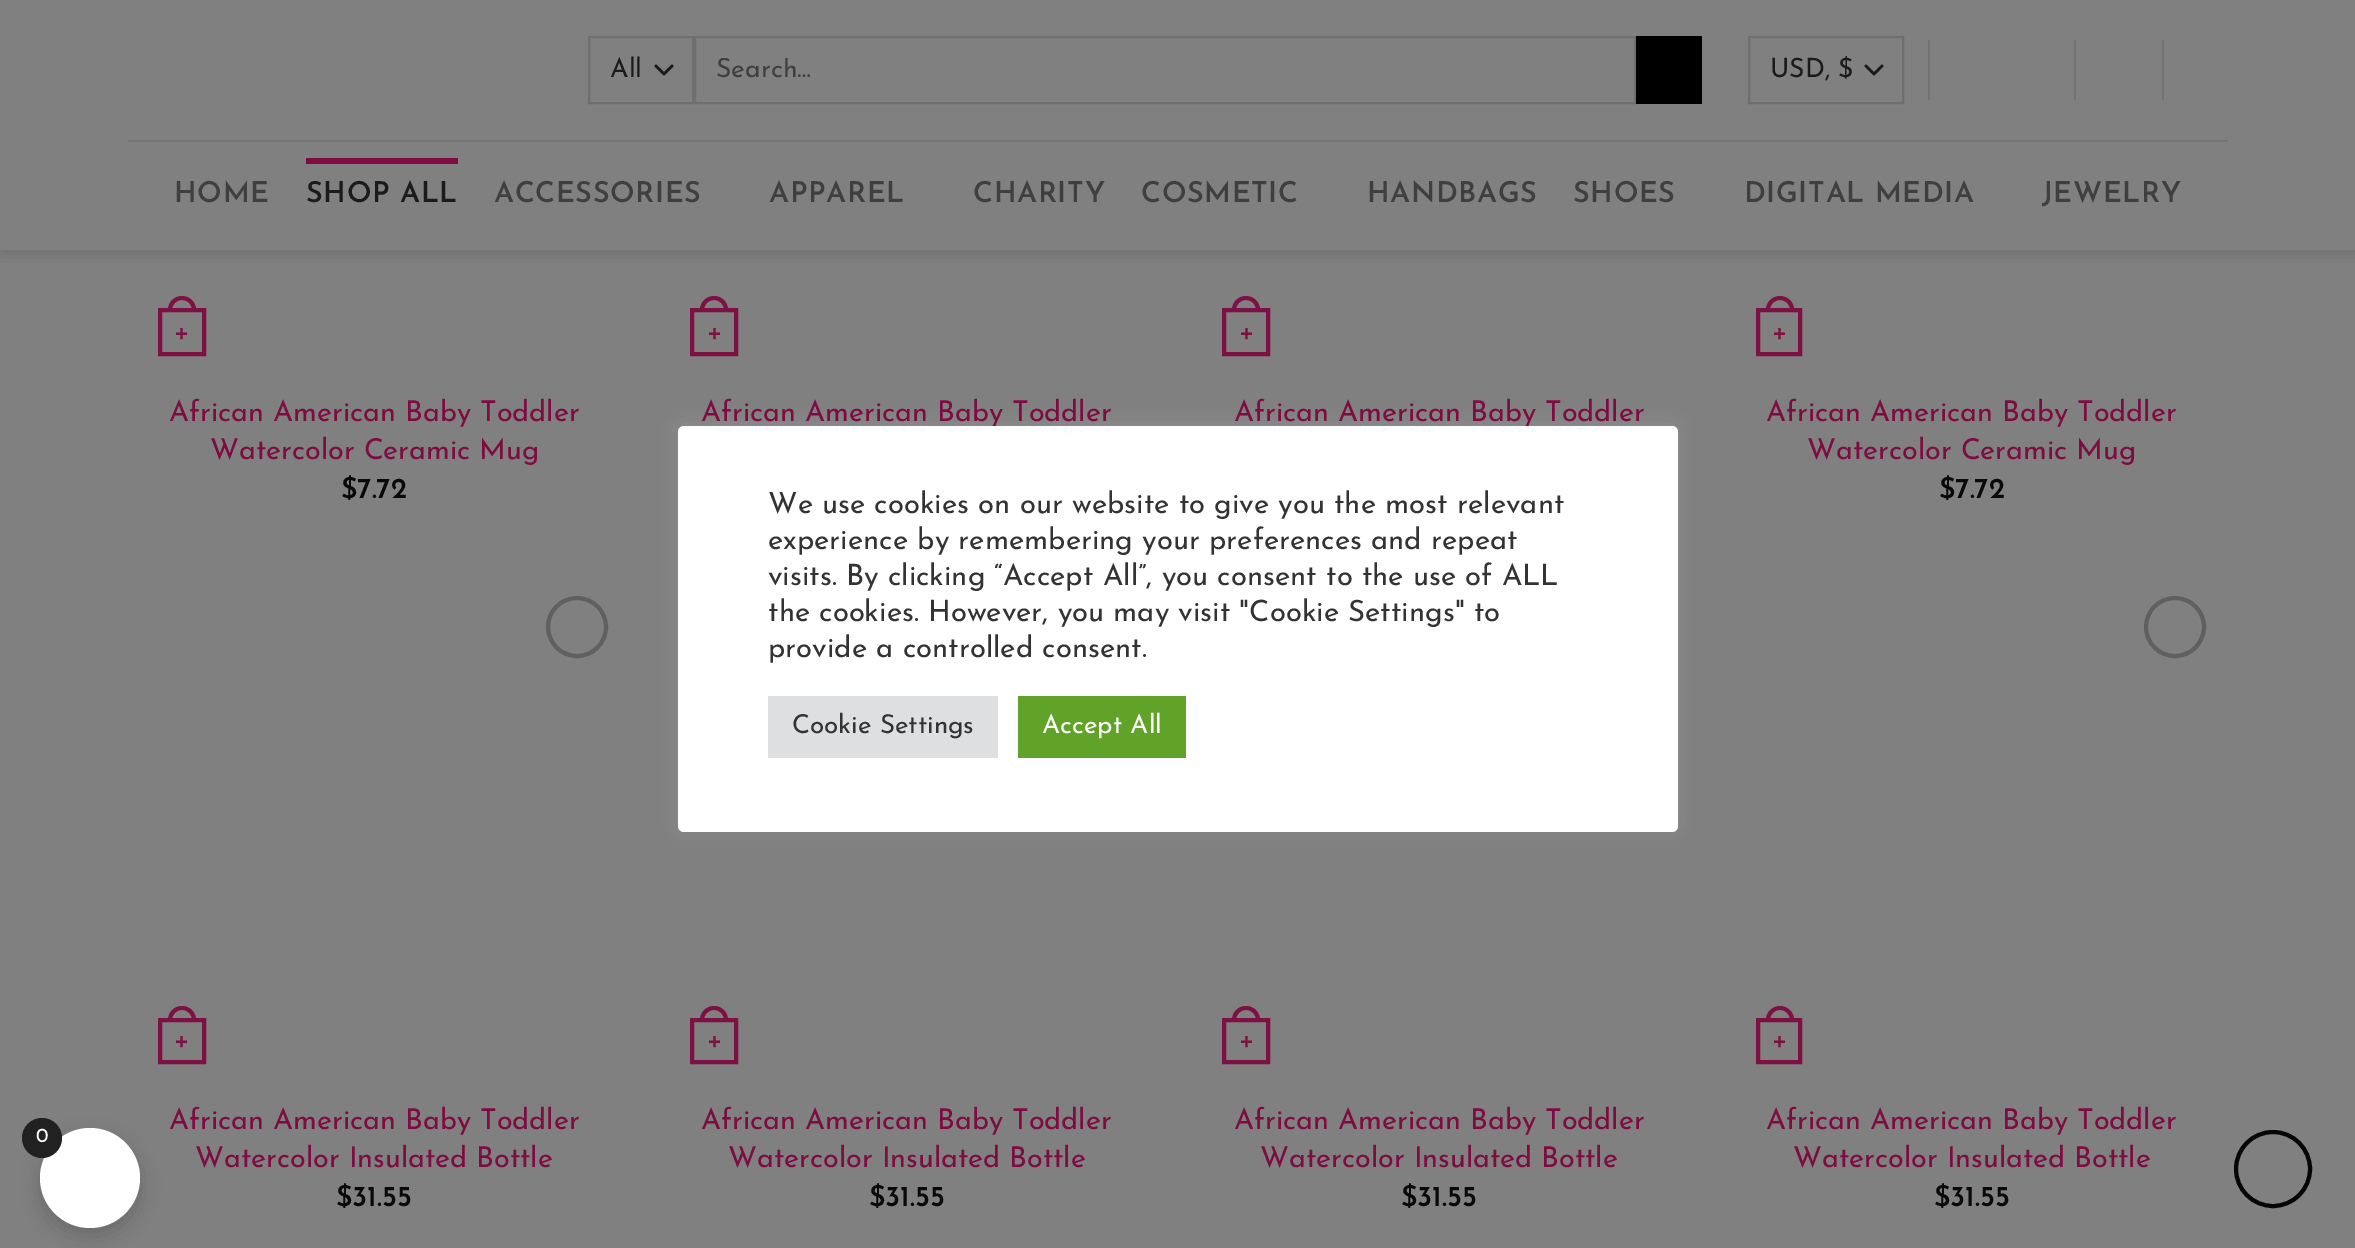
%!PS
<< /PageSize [2355 1248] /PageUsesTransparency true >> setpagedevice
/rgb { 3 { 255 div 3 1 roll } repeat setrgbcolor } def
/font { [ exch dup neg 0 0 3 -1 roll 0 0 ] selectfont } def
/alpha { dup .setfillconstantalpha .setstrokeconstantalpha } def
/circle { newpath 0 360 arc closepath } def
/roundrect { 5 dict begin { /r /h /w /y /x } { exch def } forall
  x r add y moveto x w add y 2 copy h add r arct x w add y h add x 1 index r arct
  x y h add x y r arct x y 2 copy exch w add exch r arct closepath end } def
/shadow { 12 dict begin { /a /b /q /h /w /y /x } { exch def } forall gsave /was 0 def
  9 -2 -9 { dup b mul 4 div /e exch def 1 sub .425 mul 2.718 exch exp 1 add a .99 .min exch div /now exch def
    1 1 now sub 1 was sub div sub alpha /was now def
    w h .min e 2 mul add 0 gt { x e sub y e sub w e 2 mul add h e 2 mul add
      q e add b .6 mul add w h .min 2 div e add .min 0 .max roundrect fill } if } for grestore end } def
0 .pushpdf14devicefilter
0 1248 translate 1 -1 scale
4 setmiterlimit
128 128 128 rgb
0 0 2355 1248 rectfill
gsave
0 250 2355 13 rectclip
0 0 0 rgb
2 2 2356 250 0 10 0.15 shadow
grestore
26 26 26 rgb
2.7 setlinewidth
1 setlinecap
1 setlinejoin
656 66 moveto 664 74 lineto 672 66 lineto stroke
111 111 111 rgb
2 setlinewidth
0 setlinecap
0 setlinejoin
589 37 104 66 rectstroke
695 37 940 66 rectstroke
0 0 0 rgb
1636 36 66 68 rectfill
26 26 26 rgb
2.7 setlinewidth
1 setlinecap
1 setlinejoin
1866 66 moveto 1874 74 lineto 1882 66 lineto stroke
111 111 111 rgb
2 setlinewidth
0 setlinecap
0 setlinejoin
1749 37 154 66 rectstroke
[
  [1928 40 2 60 115 115 115]
  [2074 40 2 60 115 115 115]
  [2162 40 2 60 115 115 115]
  [128 140 2100 2 116 116 116]
  [306 158 152 6 126 11 65]
] { aload pop rgb rectfill } forall
126 17 68 rgb
4 setlinewidth
160 310 44 44 rectstroke
182 296 moveto 189.5 296 196 302 196 310 curveto 196 312 lineto 168 312 lineto 168 310 lineto 168 302 174.5 296 182 296 curveto closepath 182 300 moveto 187.5 300 192 304.5 192 310 curveto 192 312 lineto 172 312 lineto 172 310 lineto 172 304.5 176.5 300 182 300 curveto closepath eofill
692 310 44 44 rectstroke
714 296 moveto 721.5 296 728 302 728 310 curveto 728 312 lineto 700 312 lineto 700 310 lineto 700 302 706.5 296 714 296 curveto closepath 714 300 moveto 719.5 300 724 304.5 724 310 curveto 724 312 lineto 704 312 lineto 704 310 lineto 704 304.5 708.5 300 714 300 curveto closepath eofill
1224 310 44 44 rectstroke
1246 296 moveto 1253.5 296 1260 302 1260 310 curveto 1260 312 lineto 1232 312 lineto 1232 310 lineto 1232 302 1238.5 296 1246 296 curveto closepath 1246 300 moveto 1251.5 300 1256 304.5 1256 310 curveto 1256 312 lineto 1236 312 lineto 1236 310 lineto 1236 304.5 1240.5 300 1246 300 curveto closepath eofill
1758 310 42 44 rectstroke
1780 296 moveto 1787.5 296 1794 302 1794 310 curveto 1794 312 lineto 1766 312 lineto 1766 310 lineto 1766 302 1772.5 296 1780 296 curveto closepath 1780 300 moveto 1785.5 300 1790 304.5 1790 310 curveto 1790 312 lineto 1770 312 lineto 1770 310 lineto 1770 304.5 1774.5 300 1780 300 curveto closepath eofill
96 96 96 rgb
577 627 29 circle stroke
126 17 68 rgb
160 1020 44 42 rectstroke
182 1006 moveto 189.5 1006 196 1012 196 1020 curveto 196 1022 lineto 168 1022 lineto 168 1020 lineto 168 1012 174.5 1006 182 1006 curveto closepath 182 1010 moveto 187.5 1010 192 1014.5 192 1020 curveto 192 1022 lineto 172 1022 lineto 172 1020 lineto 172 1014.5 176.5 1010 182 1010 curveto closepath eofill
692 1020 44 42 rectstroke
714 1006 moveto 721.5 1006 728 1012 728 1020 curveto 728 1022 lineto 700 1022 lineto 700 1020 lineto 700 1012 706.5 1006 714 1006 curveto closepath 714 1010 moveto 719.5 1010 724 1014.5 724 1020 curveto 724 1022 lineto 704 1022 lineto 704 1020 lineto 704 1014.5 708.5 1010 714 1010 curveto closepath eofill
1224 1020 44 42 rectstroke
1246 1006 moveto 1253.5 1006 1260 1012 1260 1020 curveto 1260 1022 lineto 1232 1022 lineto 1232 1020 lineto 1232 1012 1238.5 1006 1246 1006 curveto closepath 1246 1010 moveto 1251.5 1010 1256 1014.5 1256 1020 curveto 1256 1022 lineto 1236 1022 lineto 1236 1020 lineto 1236 1014.5 1240.5 1010 1246 1010 curveto closepath eofill
96 96 96 rgb
2175 627 29 circle stroke
126 17 68 rgb
1758 1020 42 42 rectstroke
1780 1006 moveto 1787.5 1006 1794 1012 1794 1020 curveto 1794 1022 lineto 1766 1022 lineto 1766 1020 lineto 1766 1012 1772.5 1006 1780 1006 curveto closepath 1780 1010 moveto 1785.5 1010 1790 1014.5 1790 1020 curveto 1790 1022 lineto 1770 1022 lineto 1770 1020 lineto 1770 1014.5 1774.5 1010 1780 1010 curveto closepath eofill
5 5 5 rgb
2273 1169 37 circle stroke
172 171 171 rgb
678 424 1000 406 6 10 0.3 shadow
0 0 0 rgb
40 1136 100 100 50 10 0.17 shadow
255 255 255 rgb
90 1178 50 circle fill
33 33 33 rgb
42 1138 20 circle fill
/JosefinSans-Regular 26.5 font
27 27 27 rgb
610 77 moveto (All) show
gsave
716 58 890 26 rectclip
63 63 63 rgb
716 77 moveto (Search…) show
grestore
1770 77 moveto (USD, $) show
/JosefinSans-SemiBold 28.75 font
63 63 63 rgb
174 202 moveto 0.6 0 (HOME) ashow
27 27 27 rgb
306 202 moveto 0.6 0 (SHOP ALL) ashow
63 63 63 rgb
494 202 moveto 0.6 0 (ACCESSORIES) ashow
769 202 moveto 0.6 0 (APPAREL) ashow
973 202 moveto 0.6 0 (CHARITY) ashow
1141 202 moveto 0.6 0 (COSMETIC) ashow
1367 202 moveto 0.6 0 (HANDBAGS) ashow
1573 202 moveto 0.6 0 (SHOES) ashow
1744 202 moveto 0.6 0 (DIGITAL MEDIA) ashow
2042 202 moveto 0.6 0 (JEWELRY) ashow
/LiberationSans-Bold 22 font
126 17 68 rgb
175 341 moveto (+) show
/JosefinSans-Regular 28.75 font
126 11 65 rgb
169 421 moveto (African American Baby Toddler) show
210 459 moveto (Watercolor Ceramic Mug) show
/JosefinSans-SemiBold 28.75 font
9 9 9 rgb
341 498 moveto ($7.72) show
/LiberationSans-Bold 22 font
126 17 68 rgb
708 341 moveto (+) show
/JosefinSans-Regular 28.75 font
126 11 65 rgb
701 421 moveto (African American Baby Toddler) show
/LiberationSans-Bold 22 font
126 17 68 rgb
1240 341 moveto (+) show
/JosefinSans-Regular 28.75 font
126 11 65 rgb
1234 421 moveto (African American Baby Toddler) show
/LiberationSans-Bold 22 font
126 17 68 rgb
1773 341 moveto (+) show
/JosefinSans-Regular 28.75 font
126 11 65 rgb
1766 421 moveto (African American Baby Toddler) show
1807 459 moveto (Watercolor Ceramic Mug) show
/JosefinSans-SemiBold 28.75 font
9 9 9 rgb
1939 498 moveto ($7.72) show
/LiberationSans-Bold 22 font
126 17 68 rgb
175 1049 moveto (+) show
/JosefinSans-Regular 28.75 font
126 11 65 rgb
169 1129 moveto (African American Baby Toddler) show
195 1167 moveto (Watercolor Insulated Bottle) show
/JosefinSans-SemiBold 28.75 font
9 9 9 rgb
336 1206 moveto ($31.55) show
/LiberationSans-Bold 22 font
126 17 68 rgb
708 1049 moveto (+) show
/JosefinSans-Regular 28.75 font
126 11 65 rgb
701 1129 moveto (African American Baby Toddler) show
728 1167 moveto (Watercolor Insulated Bottle) show
/JosefinSans-SemiBold 28.75 font
9 9 9 rgb
869 1206 moveto ($31.55) show
/LiberationSans-Bold 22 font
126 17 68 rgb
1240 1049 moveto (+) show
/JosefinSans-Regular 28.75 font
126 11 65 rgb
1234 1129 moveto (African American Baby Toddler) show
1260 1167 moveto (Watercolor Insulated Bottle) show
/JosefinSans-SemiBold 28.75 font
9 9 9 rgb
1401 1206 moveto ($31.55) show
/LiberationSans-Bold 22 font
126 17 68 rgb
1773 1049 moveto (+) show
/JosefinSans-Regular 28.75 font
126 11 65 rgb
1766 1129 moveto (African American Baby Toddler) show
1793 1167 moveto (Watercolor Insulated Bottle) show
/JosefinSans-SemiBold 28.75 font
9 9 9 rgb
1934 1206 moveto ($31.55) show
255 255 255 rgb
678 426 1000 406 6 roundrect fill
/JosefinSans-Regular 29.3 font
51 51 51 rgb
[
  [(We use cookies on our website to give you the most relevant) 768 513]
  [(experience by remembering your preferences and repeat) 768 549]
  [(visits. By clicking “Accept All”, you consent to the use of ALL) 768 585]
  [(the cookies. However, you may visit "Cookie Settings" to) 768 621]
  [(provide a controlled consent.) 768 657]
] { aload pop moveto show } forall
222 223 224 rgb
768 696 230 62 rectfill
/JosefinSans-Regular 26 font
51 51 51 rgb
792 733 moveto (Cookie Settings) show
97 162 41 rgb
1018 696 168 62 rectfill
255 255 255 rgb
1042 733 moveto (Accept All) show
/JosefinSans-Regular 20 font
36 1142 moveto (0) show
.poppdf14devicefilter showpage
